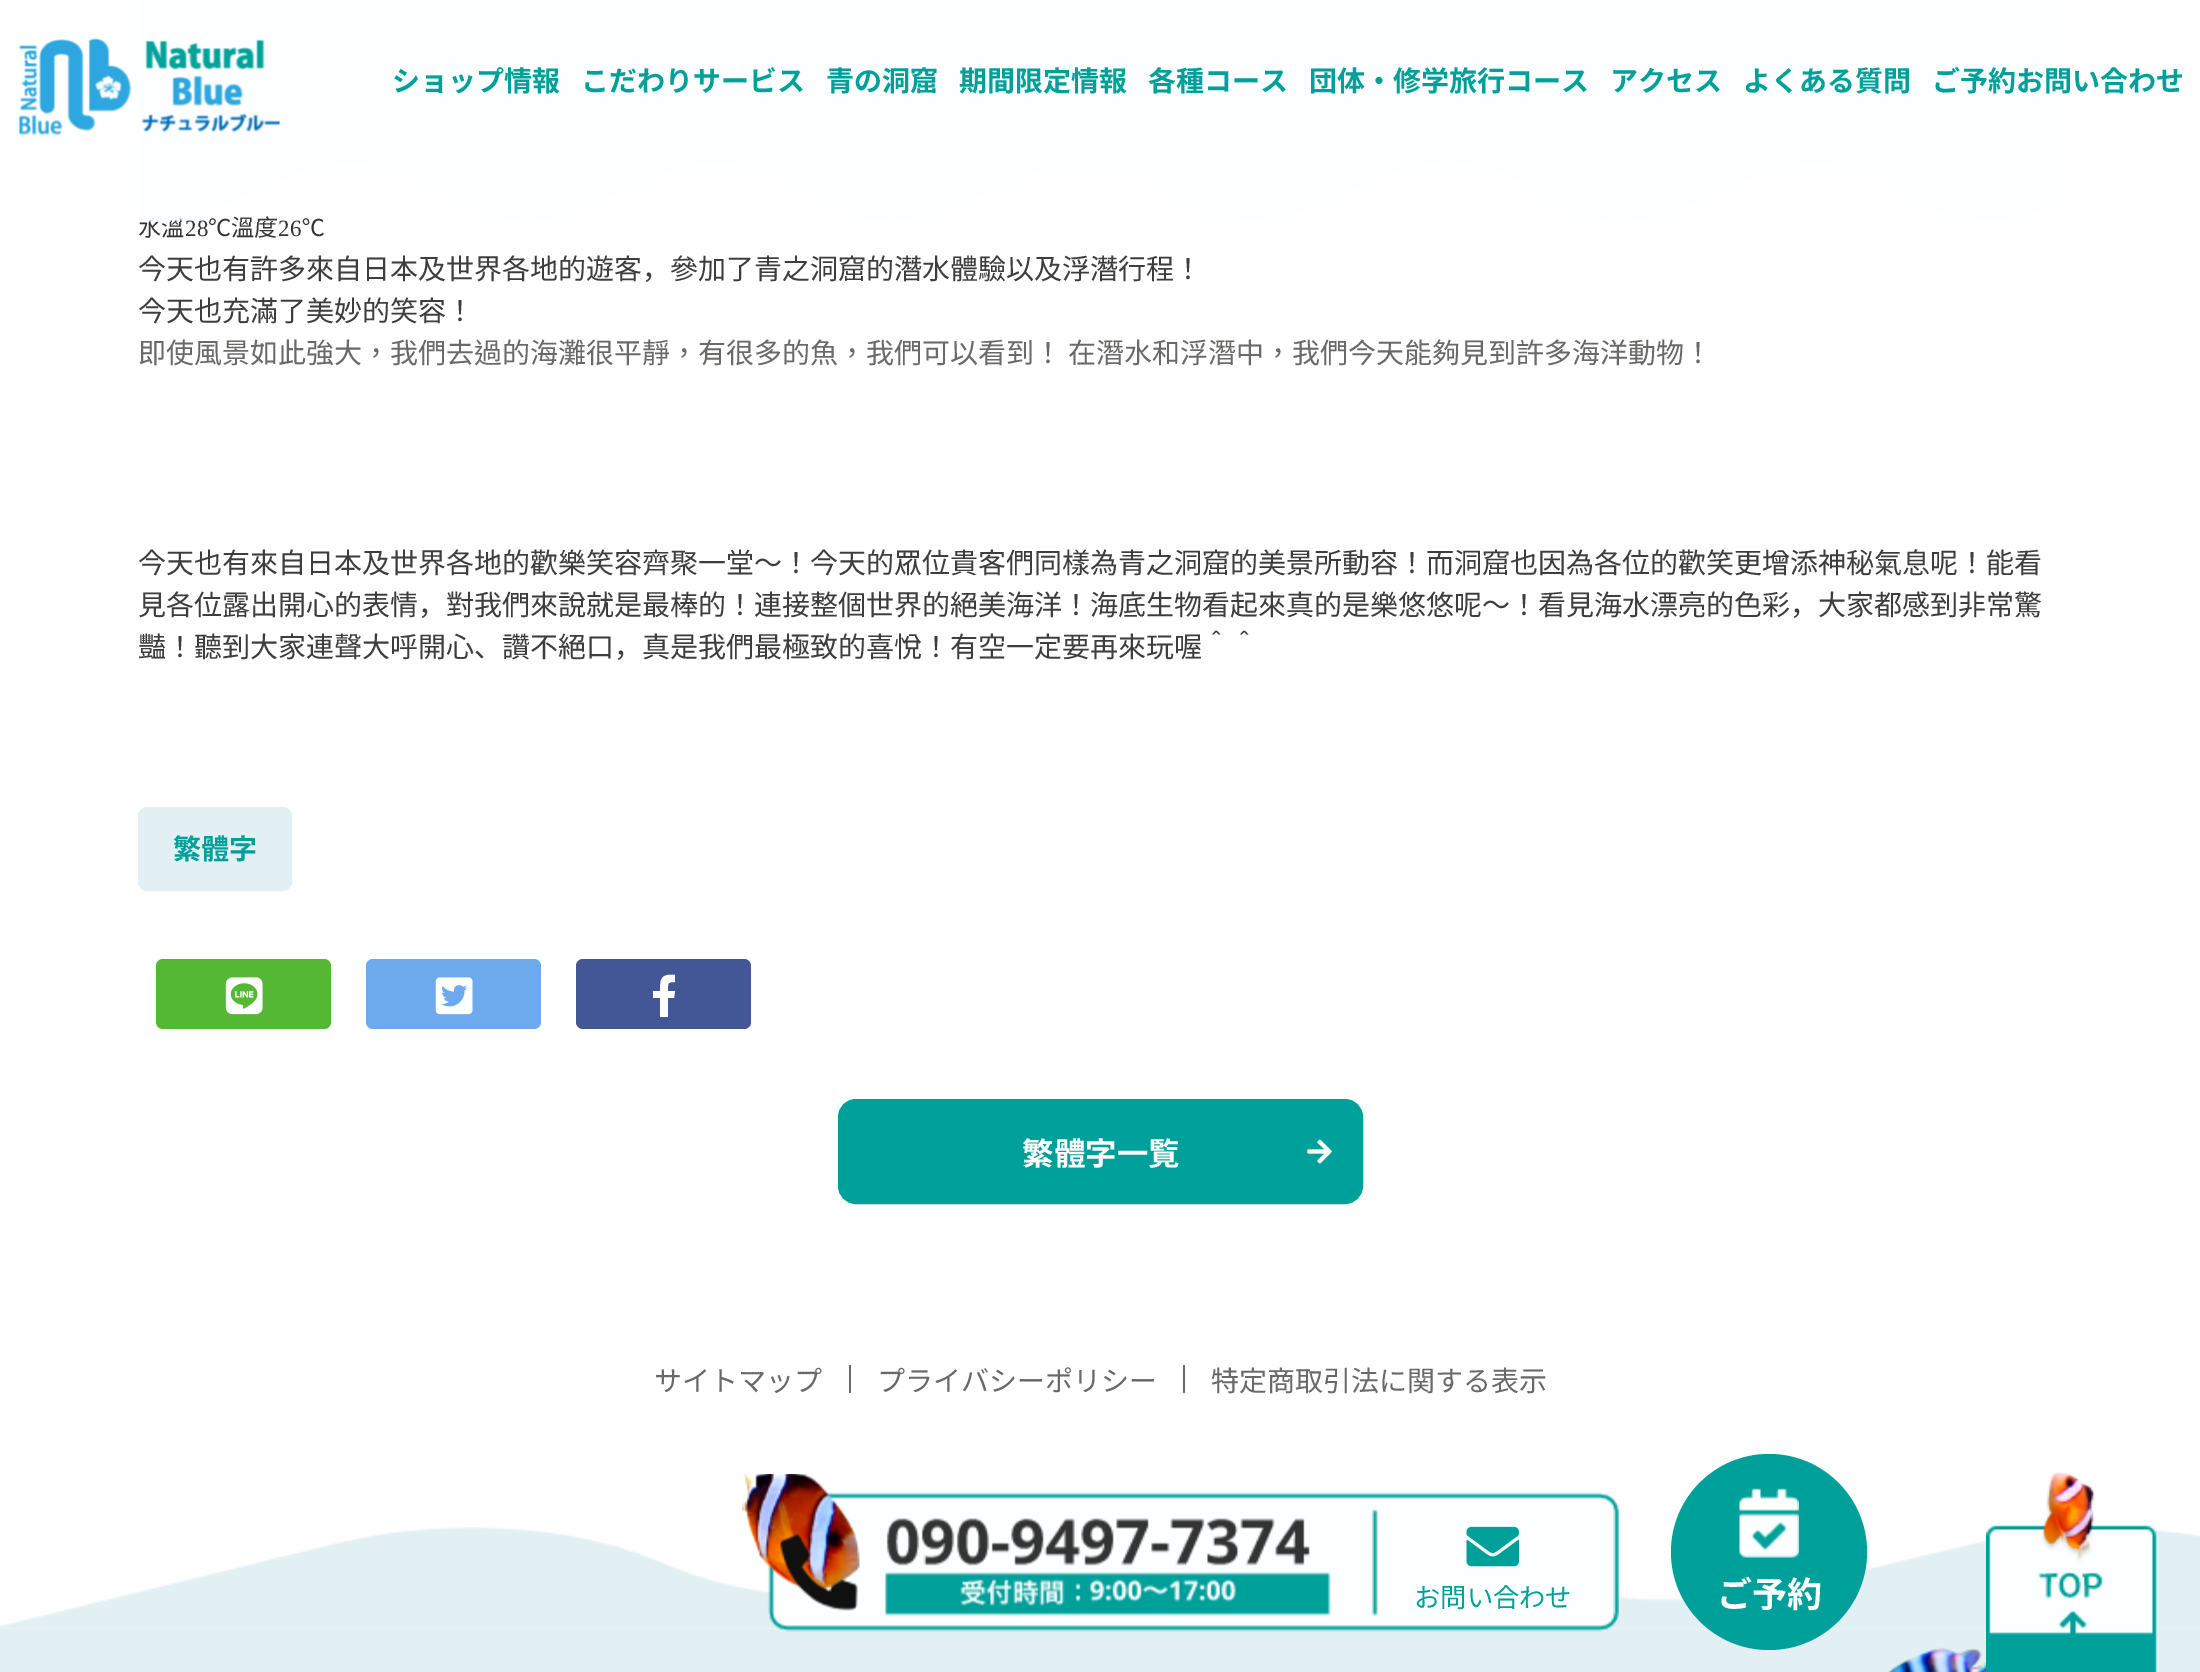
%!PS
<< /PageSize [2200 1672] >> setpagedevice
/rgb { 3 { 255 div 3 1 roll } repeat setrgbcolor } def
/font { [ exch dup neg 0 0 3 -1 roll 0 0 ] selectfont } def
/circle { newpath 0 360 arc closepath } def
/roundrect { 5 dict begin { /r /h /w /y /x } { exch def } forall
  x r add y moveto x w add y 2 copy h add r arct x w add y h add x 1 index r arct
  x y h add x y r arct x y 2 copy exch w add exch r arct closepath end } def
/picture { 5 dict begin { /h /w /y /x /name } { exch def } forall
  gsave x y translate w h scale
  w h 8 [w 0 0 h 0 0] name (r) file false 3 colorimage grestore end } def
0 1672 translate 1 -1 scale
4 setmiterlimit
255 255 255 rgb
0 0 2200 1672 rectfill
226 240 244 rgb
140 809 150 80 7 roundrect gsave fill grestore
4 setlinewidth
stroke
84 184 53 rgb
156 959 175 70 7 roundrect fill
(img/3.rgb) 225 977 38 38 picture
109 170 237 rgb
366 959 175 70 7 roundrect fill
(img/4.rgb) 435 977 38 38 picture
67 87 151 rgb
576 959 175 70 7 roundrect fill
255 255 255 rgb
674 998 moveto 668 998 lineto 668 1017 lineto 660 1017 lineto 660 998 lineto 653 998 lineto 653 991 lineto 660 991 lineto 660 977 662 974 675 975 curveto 675 982 lineto 667 982 668 983 668 991 curveto 675 991 lineto closepath fill
0 160 154 rgb
840.5 1101.5 520 100 15.5 roundrect gsave fill grestore
5 setlinewidth
stroke
(img/5.rgb) 1307 1139 25 25 picture
106 105 104 rgb
849 1365 2 28 rectfill
1183 1365 2 28 rectfill
(img/6.rgb) 0 1527 2200 102 picture
226 240 244 rgb
0 1629 2200 43 rectfill
(img/7.rgb) 1888 1647 98 25 picture
(img/8.rgb) 742 1474 877 158 picture
(img/9.rgb) 1466 1526 53 41 picture
0 160 154 rgb
1769 1552 98 circle fill
(img/10.rgb) 1739 1488 60 70 picture
(img/11.rgb) 1986 1471 172 201 picture
/NotoSansCJKTC-Regular 23 font
51 51 51 rgb
138 236 moveto (水溫) show
/LiberationSerif-Regular 23 font
185 236 moveto (28) show
/NotoSansCJKTC-Regular 23 font
208 236 moveto (℃溫度) show
/LiberationSerif-Regular 23 font
278 236 moveto (26) show
/NotoSansCJKTC-Regular 23 font
302 236 moveto (℃) show
(img/1.rgb) 138 0 1926 222 picture
/NotoSansJP-Bold 28 font
0 160 154 rgb
[
  [(ご予約お問い合わせ) 1932 91]
  [(よくある質問) 1743 91]
  [(アクセス) 1610 91]
  [(団体・修学旅行コース) 1309 91]
  [(各種コース) 1148 91]
  [(期間限定情報) 959 91]
  [(青の洞窟) 826 91]
  [(こだわりサービス) 581 91]
  [(ショップ情報) 392 91]
] { aload pop moveto show } forall
(img/2.rgb) 18 38 263 98 picture
/NotoSansJP-Regular 28 font
61 61 61 rgb
138 279 moveto (今天也有許多來自日本及世界各地的遊客，參加了青之洞窟的潛水體驗以及浮潛行程！) show
138 321 moveto (今天也充滿了美妙的笑容！) show
/NotoSansCJKTC-Regular 28 font
106 105 104 rgb
138 363 moveto (即使風景如此強大，我們去過的海灘很平靜，有很多的魚，我們可以看到！ 在潛水和浮潛中，我們今天能夠見到許多海洋動物！) show
/NotoSansJP-Regular 28 font
61 61 61 rgb
[
  [(今天也有來自日本及世界各地的歡樂笑容齊聚一堂～！今天的眾位貴客們同樣為青之洞窟的美景所動容！而洞窟也因為各位的歡笑更增添神秘氣息呢！能看) 138 573]
  [(見各位露出開心的表情，對我們來說就是最棒的！連接整個世界的絕美海洋！海底生物看起來真的是樂悠悠呢～！看見海水漂亮的色彩，大家都感到非常驚) 138 615]
  [(豔！聽到大家連聲大呼開心、讚不絕口，真是我們最極致的喜悅！有空一定要再來玩喔＾＾) 138 657]
] { aload pop moveto show } forall
/NotoSansJP-Bold 28 font
0 160 154 rgb
173 859 moveto (繁體字) show
/NotoSansJP-Bold 31.5 font
255 255 255 rgb
1022 1165 moveto (繁體字一覧) show
/NotoSansJP-Regular 28 font
106 105 104 rgb
[
  [(サイトマップ) 654 1391]
  [(プライバシーポリシー) 877 1391]
  [(特定商取引法に関する表示) 1211 1391]
] { aload pop moveto show } forall
/NotoSansJP-Regular 26.25 font
0 160 154 rgb
1414 1607 moveto (お問い合わせ) show
/NotoSansJP-Bold 35 font
255 255 255 rgb
1717 1607 moveto (ご予約) show
showpage
